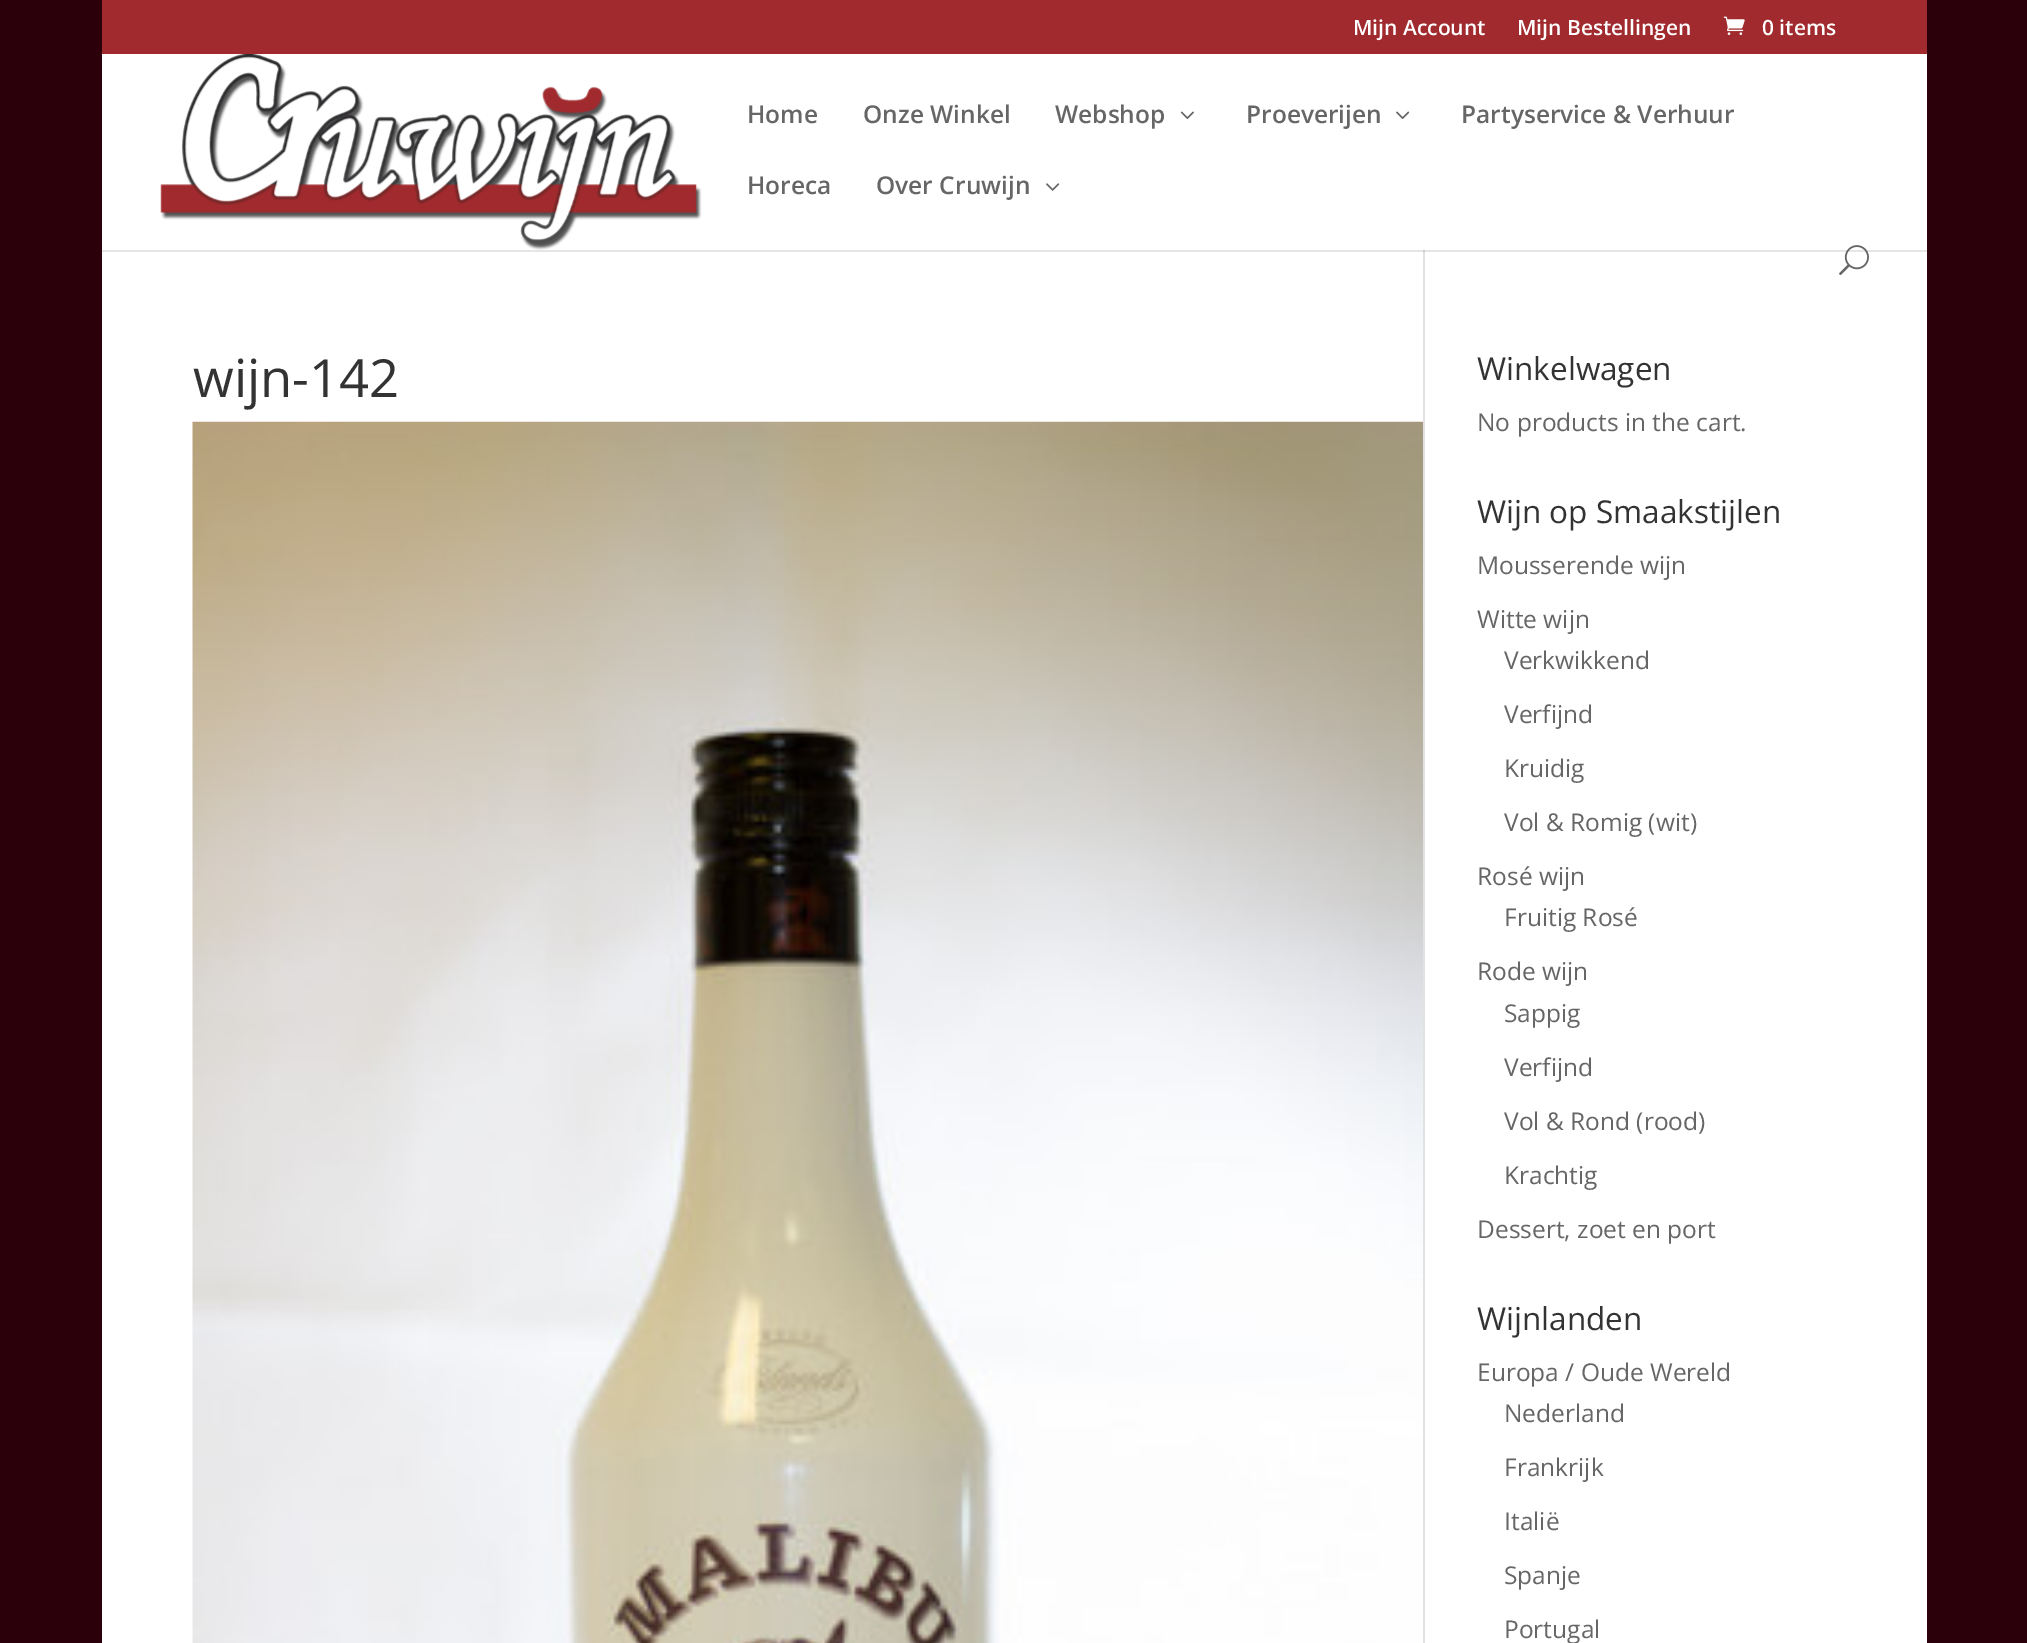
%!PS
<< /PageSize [2027 1643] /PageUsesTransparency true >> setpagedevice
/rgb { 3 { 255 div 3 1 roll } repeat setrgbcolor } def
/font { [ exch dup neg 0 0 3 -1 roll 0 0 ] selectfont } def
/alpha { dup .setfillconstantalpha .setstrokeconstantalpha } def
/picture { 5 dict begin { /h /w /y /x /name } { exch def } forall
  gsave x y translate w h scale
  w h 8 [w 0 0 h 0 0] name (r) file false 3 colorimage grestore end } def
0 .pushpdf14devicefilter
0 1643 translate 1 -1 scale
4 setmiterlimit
43 0 10 rgb
0 0 2027 1643 rectfill
160 42 45 rgb
102 0 1825 54 rectfill
(img/1.rgb) 1723 16 22 19 picture
255 255 255 rgb
102 54 1825 1589 rectfill
226 226 226 rgb
1423 250 2 1393 rectfill
0.1 alpha
0 0 0 rgb
102 250 moveto 102 252 lineto 1927 252 lineto 1927 56 lineto 1927 250 lineto closepath fill
1 alpha
(img/2.rgb) 160 54 542 196 picture
(img/3.rgb) 1180 111 14 8 picture
(img/4.rgb) 1396 111 14 8 picture
(img/5.rgb) 1046 183 14 8 picture
(img/6.rgb) 1839 245 30 30 picture
(img/7.rgb) 192 421 1231 1222 picture
/OpenSans-SemiBold 21 font
255 255 255 rgb
[
  [(Mijn Account) 1353 35]
  [(Mijn Bestellingen) 1517 35]
  [(0 items) 1762 35]
] { aload pop moveto show } forall
/OpenSans-SemiBold 24.5 font
102 102 102 rgb
[
  [(Home) 747 123]
  [(Onze Winkel) 863 123]
  [(Webshop) 1055 123]
  [(Proeverijen) 1246 123]
  [(Partyservice & Verhuur) 1461 123]
  [(Horeca) 747 194]
  [(Over Cruwijn) 876 194]
] { aload pop moveto show } forall
/OpenSans-Regular 52.5 font
51 51 51 rgb
193 397 moveto (wijn-142) show
/OpenSans-Regular 31.5 font
1477 380 moveto (Winkelwagen) show
/OpenSans-Regular 24.5 font
102 102 102 rgb
1477 431 moveto (No products in the cart.) show
/OpenSans-Regular 31.5 font
51 51 51 rgb
1477 523 moveto (Wijn op Smaakstijlen) show
/OpenSans-Regular 24.5 font
102 102 102 rgb
[
  [(Mousserende wijn) 1477 574]
  [(Witte wijn) 1477 628]
  [(Verkwikkend) 1504 669]
  [(Verfijnd) 1504 723]
  [(Kruidig) 1504 777]
  [(Vol & Romig \(wit\)) 1504 831]
  [(Rosé wijn) 1477 885]
  [(Fruitig Rosé) 1504 926]
  [(Rode wijn) 1477 980]
  [(Sappig) 1504 1022]
  [(Verfijnd) 1504 1076]
  [(Vol & Rond \(rood\)) 1504 1130]
  [(Krachtig) 1504 1184]
  [(Dessert, zoet en port) 1477 1238]
] { aload pop moveto show } forall
/OpenSans-Regular 31.5 font
51 51 51 rgb
1477 1330 moveto (Wijnlanden) show
/OpenSans-Regular 24.5 font
102 102 102 rgb
[
  [(Europa / Oude Wereld) 1477 1381]
  [(Nederland) 1504 1422]
  [(Frankrijk) 1504 1476]
  [(Italië) 1504 1530]
  [(Spanje) 1504 1584]
  [(Portugal) 1504 1638]
] { aload pop moveto show } forall
.poppdf14devicefilter showpage
